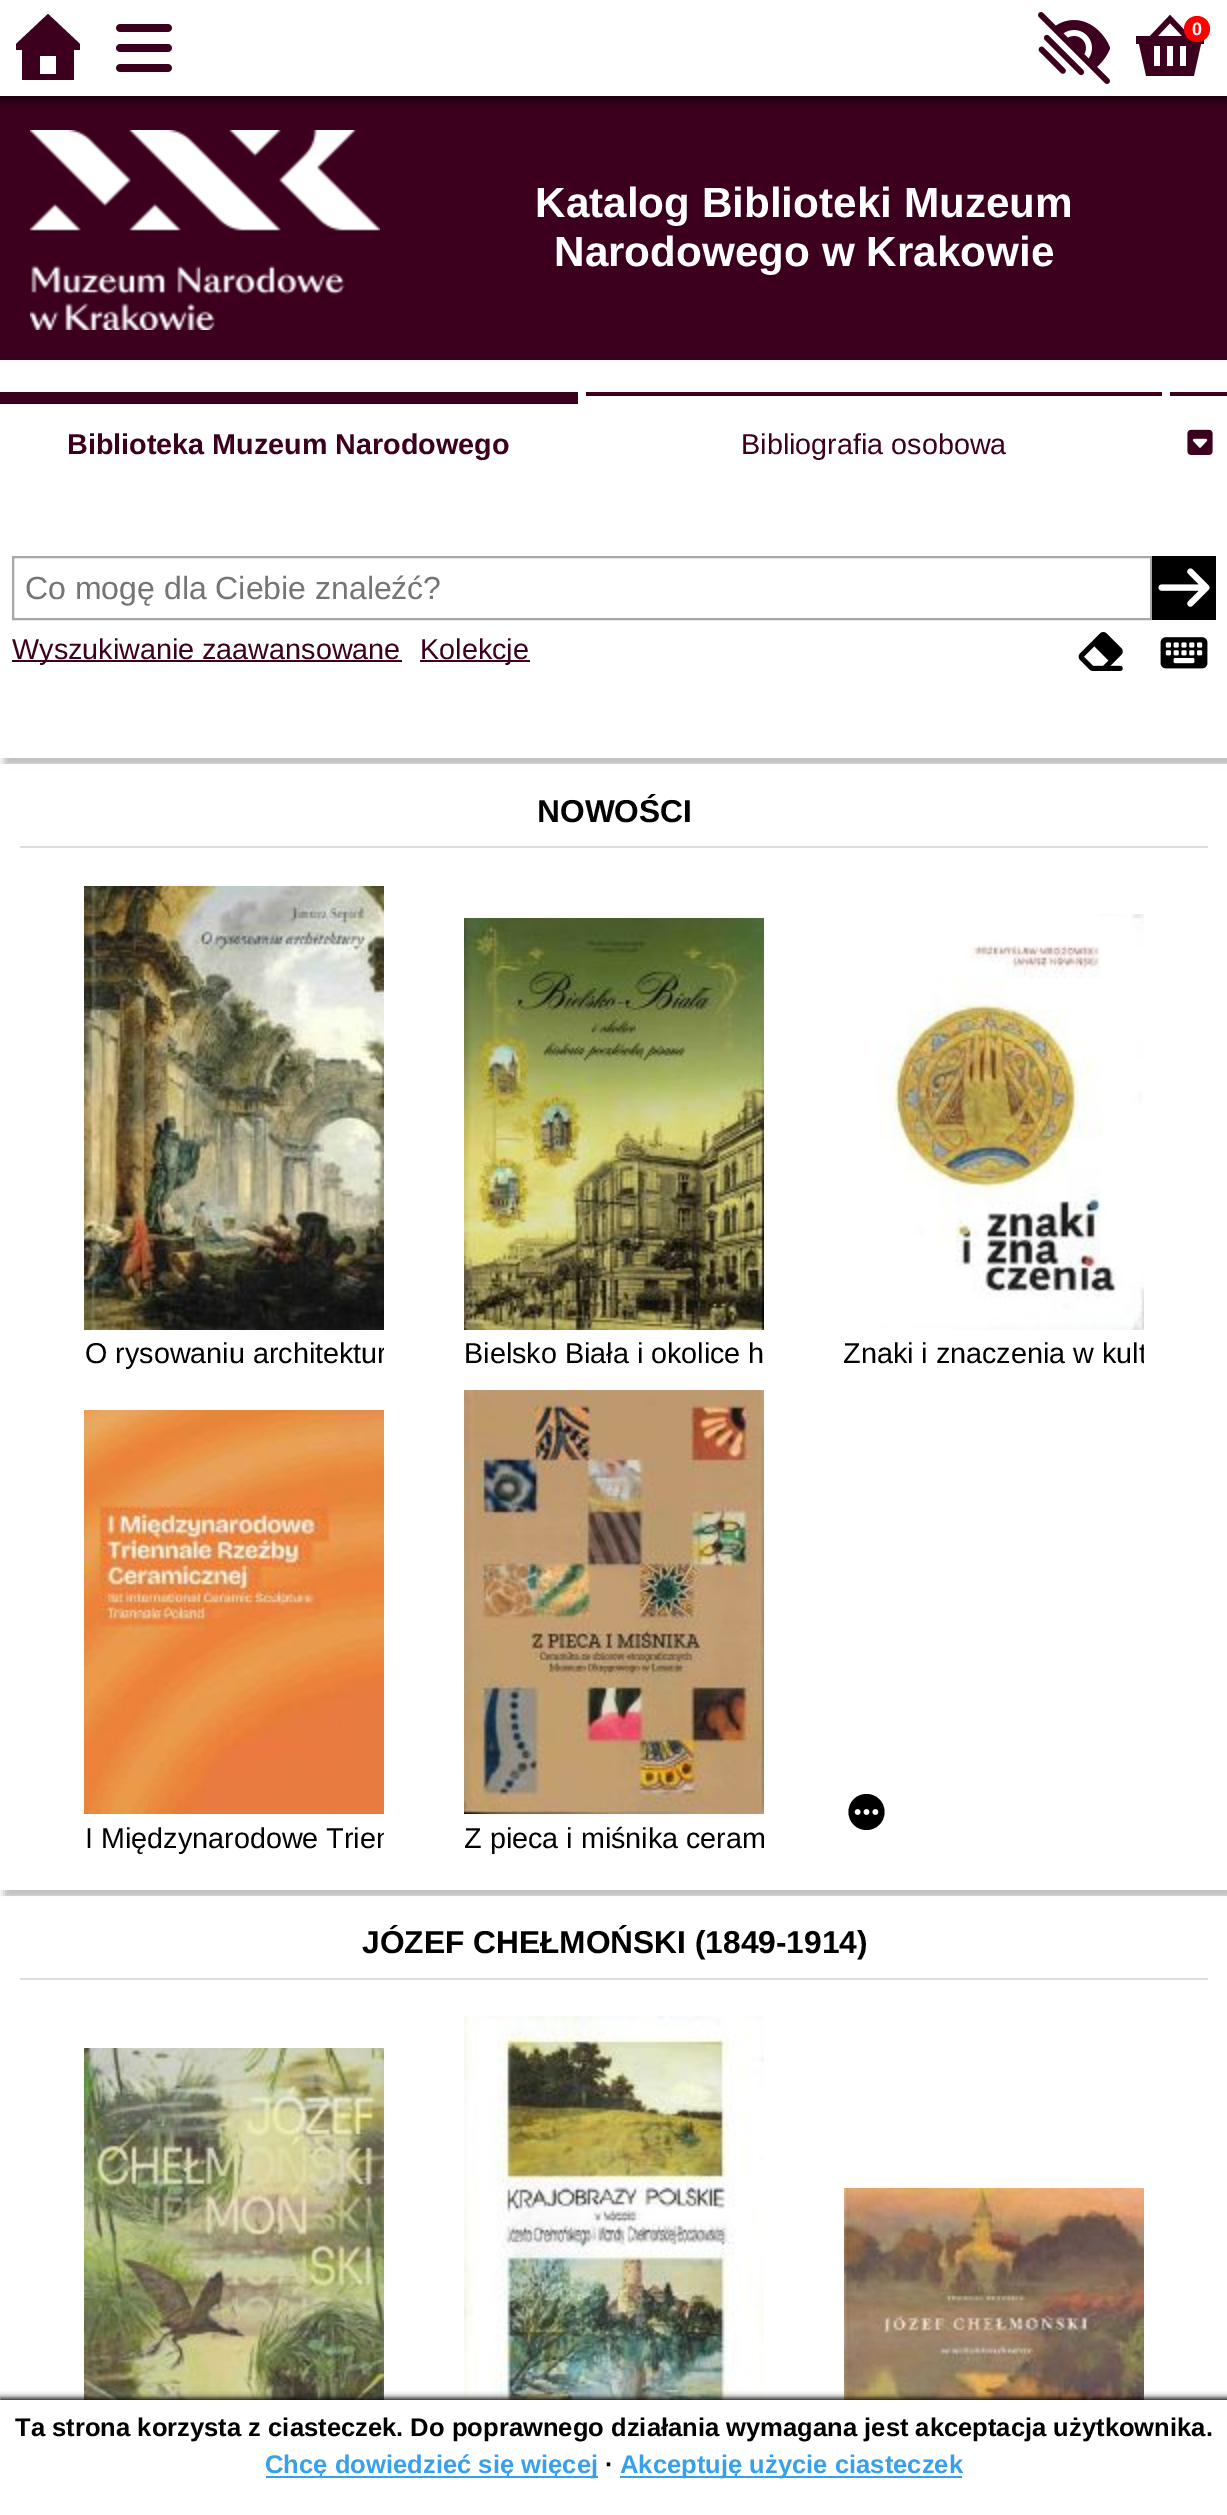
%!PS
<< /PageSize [1227 2515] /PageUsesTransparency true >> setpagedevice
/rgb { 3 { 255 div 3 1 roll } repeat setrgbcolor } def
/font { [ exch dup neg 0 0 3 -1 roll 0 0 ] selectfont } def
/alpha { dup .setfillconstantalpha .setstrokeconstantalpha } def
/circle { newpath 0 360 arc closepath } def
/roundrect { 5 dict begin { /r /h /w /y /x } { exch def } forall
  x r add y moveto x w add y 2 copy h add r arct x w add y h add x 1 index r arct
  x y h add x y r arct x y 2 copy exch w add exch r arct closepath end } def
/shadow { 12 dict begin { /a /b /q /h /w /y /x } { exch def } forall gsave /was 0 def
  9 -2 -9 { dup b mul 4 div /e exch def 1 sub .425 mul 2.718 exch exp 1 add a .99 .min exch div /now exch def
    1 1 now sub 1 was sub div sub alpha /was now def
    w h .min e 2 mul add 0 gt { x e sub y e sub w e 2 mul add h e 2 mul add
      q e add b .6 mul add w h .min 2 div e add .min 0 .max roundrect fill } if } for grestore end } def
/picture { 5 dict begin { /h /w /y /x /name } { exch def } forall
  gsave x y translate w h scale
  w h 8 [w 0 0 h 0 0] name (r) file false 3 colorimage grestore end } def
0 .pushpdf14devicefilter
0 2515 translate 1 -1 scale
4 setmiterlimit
255 255 255 rgb
0 0 1227 2515 rectfill
60 0 30 rgb
0 96 1227 264 rectfill
gsave
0 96 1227 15 rectclip
0 0 0 rgb
0 4 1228 96 0 6 0.65 shadow
grestore
80 50 moveto 74 50 lineto 74 80 lineto 22 80 lineto 22 50 lineto 16 50 lineto 16 44 lineto 48 14 lineto 80 44 lineto closepath 56 74 moveto 56 56 lineto 40 56 lineto 40 74 lineto closepath fill
(img/1.rgb) 116 24 56 48 picture
(img/2.rgb) 1038 12 72 72 picture
(img/3.rgb) 1136 14 68 62 picture
255 0 0 rgb
1197 29 13 circle fill
(img/4.rgb) 30 130 350 200 picture
gsave
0 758 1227 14 rectclip
0 0 0 rgb
4 400 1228 366 0 4 0.25 shadow
grestore
[
  [0 392 578 12 60 0 30]
  [586 392 576 4 60 0 30]
  [1170 392 57 4 60 0 30]
] { aload pop rgb rectfill } forall
(img/5.rgb) 1187 429 26 26 picture
167 167 167 rgb
2 setlinewidth
13 557 1138 62 rectstroke
0 0 0 rgb
1152 556 64 64 rectfill
(img/6.rgb) 1158 568 52 39 picture
60 0 30 rgb
12 660 390 2 rectfill
420 660 110 2 rectfill
(img/7.rgb) 1078 632 45 39 picture
(img/8.rgb) 1160 637 48 32 picture
gsave
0 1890 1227 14 rectclip
0 0 0 rgb
4 772 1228 1126 0 4 0.25 shadow
grestore
0.95 alpha
255 255 255 rgb
0 764 1227 9 rectfill
1 alpha
221 221 221 rgb
20 846 1188 2 rectfill
(img/9.rgb) 84 886 300 444 picture
(img/10.rgb) 464 918 300 412 picture
(img/11.rgb) 876 914 268 416 picture
0 0 0 rgb
848.5 1812 moveto 848.5 1802 856.5 1794 866.5 1794 curveto 876.5 1794 884.5 1802 884.5 1812 curveto 884.5 1822 876.5 1830 866.5 1830 curveto 856.5 1830 848.5 1822 848.5 1812 curveto closepath fill
(img/12.rgb) 854 1809 25 6 picture
(img/13.rgb) 84 1410 300 404 picture
(img/14.rgb) 464 1390 300 424 picture
0.95 alpha
255 255 255 rgb
0 1896 1227 9 rectfill
1 alpha
221 221 221 rgb
20 1978 1188 2 rectfill
(img/15.rgb) 84 2048 300 352 picture
(img/16.rgb) 464 2016 300 384 picture
(img/17.rgb) 844 2188 300 212 picture
0 0 0 rgb
0 2398 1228 116 0 3 1 shadow
[
  [0 2400 1227 115 255 255 255]
  [266 2476 332 2 54 160 236]
  [620 2476 342 2 54 160 236]
] { aload pop rgb rectfill } forall
/LiberationSans-Bold 18 font
255 255 255 rgb
1192 35 moveto (0) show
/LiberationSans-Bold 42.25 font
535 217 moveto (Katalog Biblioteki Muzeum) show
554 266 moveto (Narodowego w Krakowie) show
/LiberationSans-Bold 28.75 font
60 0 30 rgb
67 454 moveto (Biblioteka Muzeum Narodowego) show
/LiberationSans-Regular 28.75 font
741 454 moveto (Bibliografia osobowa) show
/LiberationSans-Regular 32 font
117 117 117 rgb
25 599 moveto (Co mogę dla Ciebie znaleźć?) show
/LiberationSans-Regular 28.75 font
60 0 30 rgb
12 659 moveto (Wyszukiwanie zaawansowane) show
420 659 moveto (Kolekcje) show
/LiberationSans-Bold 31.7 font
0 0 0 rgb
537 822 moveto (NOWOŚCI) show
gsave
84 1338 300 42 rectclip
/LiberationSans-Regular 28.75 font
85 1363 moveto (O rysowaniu architektur) show
grestore
/LiberationSans-Regular 28.75 font
464 1363 moveto (Bielsko Biała i okolice h) show
gsave
844 1338 300 42 rectclip
843 1363 moveto (Znaki i znaczenia w kult) show
grestore
gsave
84 1822 300 42 rectclip
85 1848 moveto (I Międzynarodowe Trien) show
grestore
gsave
464 1822 300 42 rectclip
464 1848 moveto (Z pieca i miśnika ceram) show
grestore
/LiberationSans-Bold 31.7 font
362 1953 moveto (JÓZEF CHEŁMOŃSKI \(1849-1914\)) show
/LiberationSans-Bold 25.6 font
15 2436 moveto (Ta strona korzysta z ciasteczek. Do poprawnego działania wymagana jest akceptacja użytkownika.) show
54 160 236 rgb
265 2473 moveto (Chcę dowiedzieć się więcej) show
0 0 0 rgb
605 2473 moveto (∙) show
54 160 236 rgb
620 2473 moveto (Akceptuję użycie ciasteczek) show
.poppdf14devicefilter showpage
